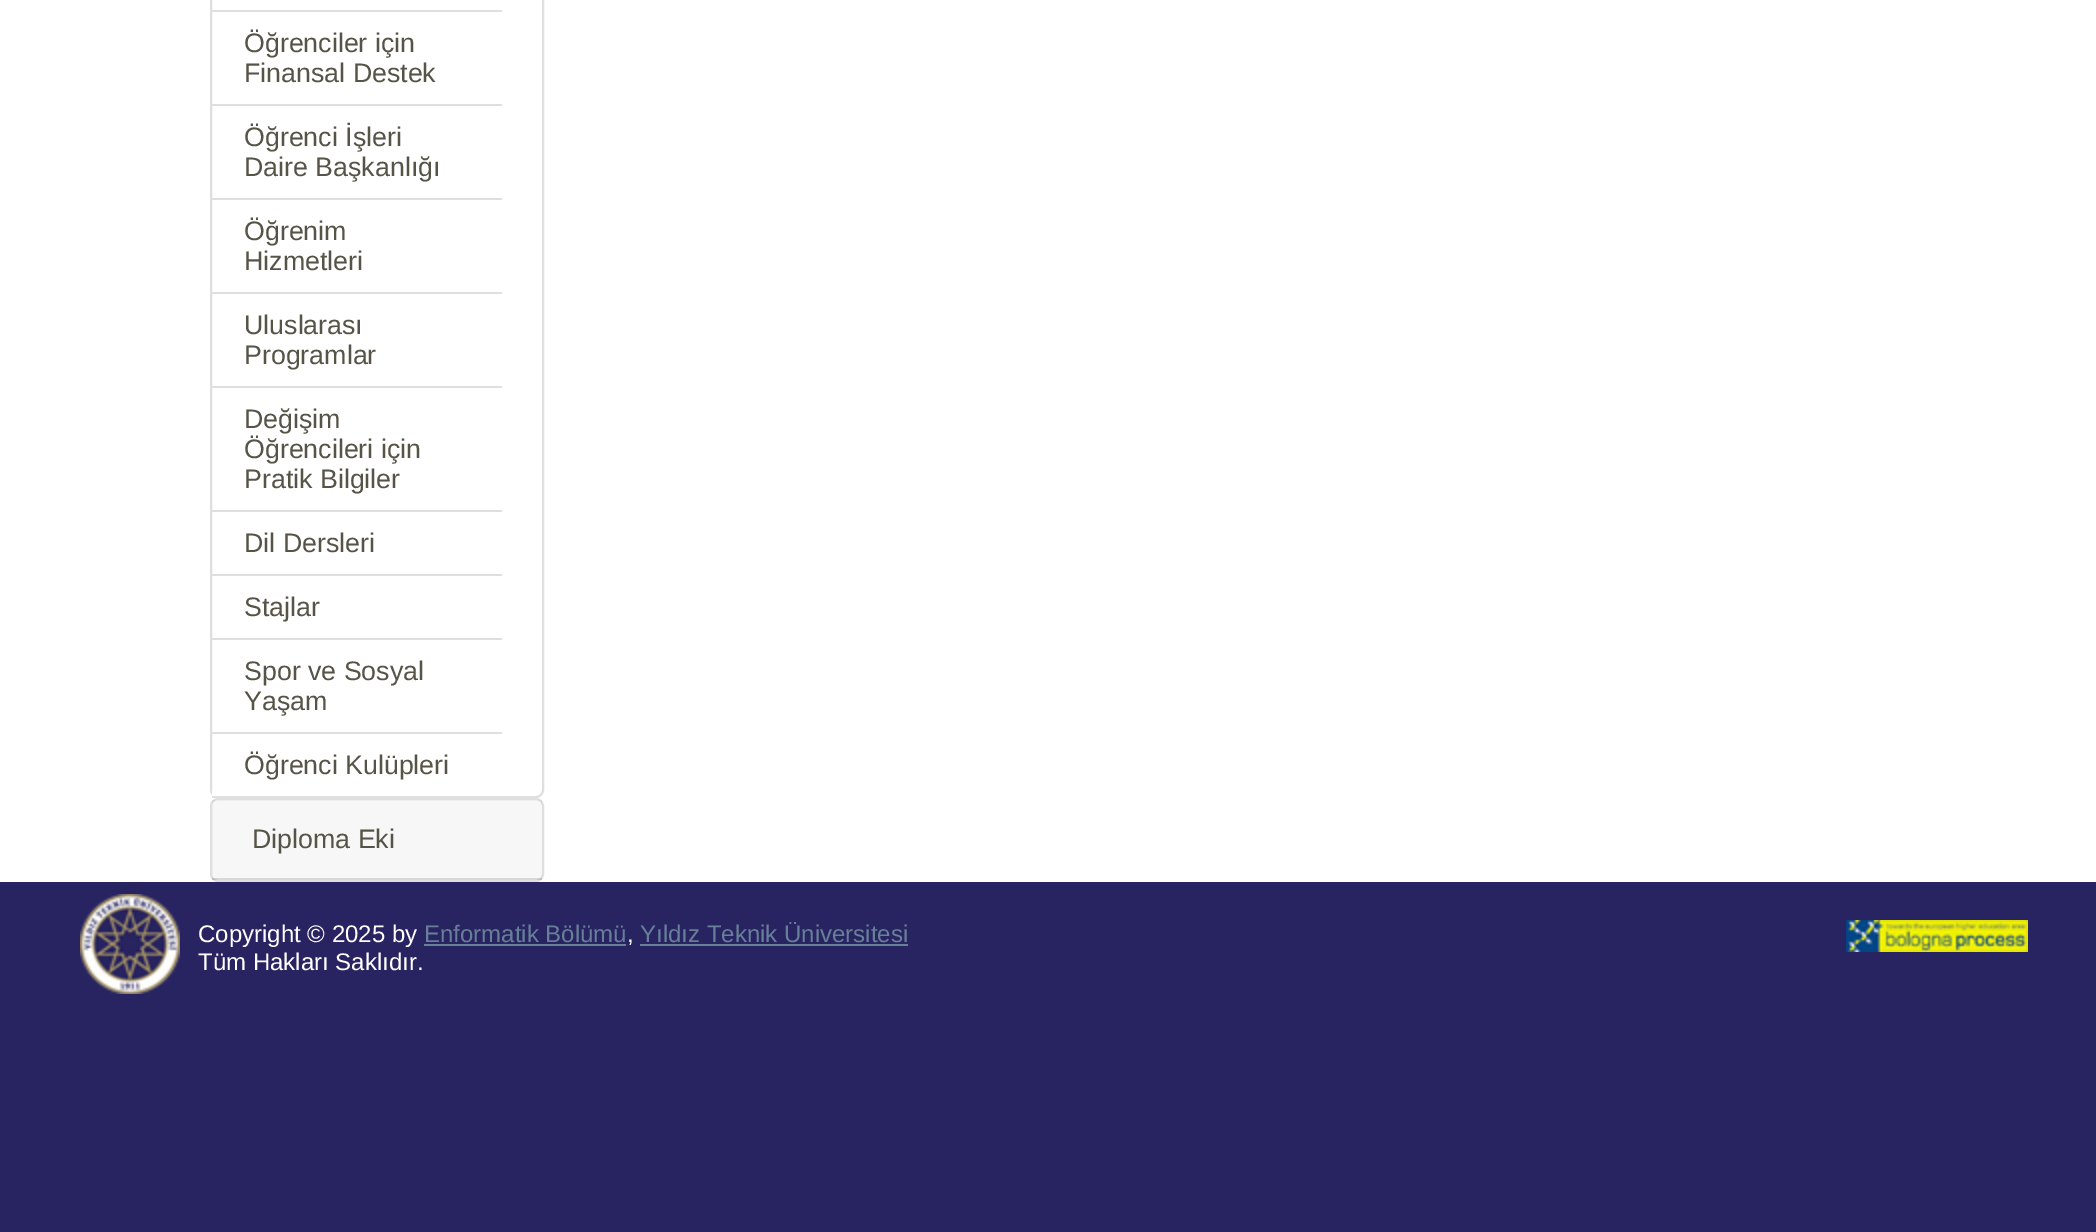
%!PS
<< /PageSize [2096 1232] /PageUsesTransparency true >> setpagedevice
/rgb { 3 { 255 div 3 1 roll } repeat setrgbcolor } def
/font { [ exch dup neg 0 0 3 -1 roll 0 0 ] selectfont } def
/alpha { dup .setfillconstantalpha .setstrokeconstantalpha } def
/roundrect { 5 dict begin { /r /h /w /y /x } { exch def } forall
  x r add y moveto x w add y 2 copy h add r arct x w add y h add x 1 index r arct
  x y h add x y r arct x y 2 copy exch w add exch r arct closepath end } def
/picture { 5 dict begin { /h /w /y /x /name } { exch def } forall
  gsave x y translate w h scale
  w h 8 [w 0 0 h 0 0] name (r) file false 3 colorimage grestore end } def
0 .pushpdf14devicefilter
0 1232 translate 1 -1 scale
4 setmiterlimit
255 255 255 rgb
0 0 2096 1232 rectfill
223 223 223 rgb
2 setlinewidth
211 -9 332 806 7 roundrect stroke
[
  [212 10 290 2 223 223 223]
  [212 104 290 2 223 223 223]
  [212 198 290 2 223 223 223]
  [212 292 290 2 223 223 223]
  [212 386 290 2 223 223 223]
  [212 510 290 2 223 223 223]
  [212 574 290 2 223 223 223]
  [212 638 290 2 223 223 223]
  [212 791 5 5 255 255 255]
  [212 732 290 2 223 223 223]
  [212 796 5 2 223 223 223]
] { aload pop rgb rectfill } forall
211 799 332 82 7 roundrect stroke
0.03 alpha
[
  [212 800 330 80 0 0 0]
] { aload pop rgb rectfill } forall
0.12 alpha
[
  [212 878 330 2 0 0 0]
] { aload pop rgb rectfill } forall
1 alpha
[
  [0 882 2096 350 40 36 98]
] { aload pop rgb rectfill } forall
(img/1.rgb) 80 894 100 100 picture
104 127 152 rgb
424 944 202 2 rectfill
640 944 268 2 rectfill
(img/2.rgb) 1846 920 182 32 picture
/LiberationSans-Regular 26.75 font
86 83 71 rgb
[
  [(Öğrenciler için) 244 52]
  [(Finansal Destek) 244 82]
  [(Öğrenci İşleri) 244 146]
  [(Daire Başkanlığı) 244 176]
  [(Öğrenim) 244 240]
  [(Hizmetleri) 244 270]
  [(Uluslarası) 244 334]
  [(Programlar) 244 364]
  [(Değişim) 244 428]
  [(Öğrencileri için) 244 458]
  [(Pratik Bilgiler) 244 488]
  [(Dil Dersleri) 244 552]
  [(Stajlar) 244 616]
  [(Spor ve Sosyal) 244 680]
  [(Yaşam) 244 710]
  [(Öğrenci Kulüpleri) 244 774]
  [(Diploma Eki) 252 848]
] { aload pop moveto show } forall
/LiberationSans-Regular 24 font
255 255 255 rgb
198 942 moveto (Copyright © 2025 by) show
104 127 152 rgb
424 942 moveto (Enformatik Bölümü) show
255 255 255 rgb
627 942 moveto (,) show
104 127 152 rgb
640 942 moveto (Yıldız Teknik Üniversitesi) show
255 255 255 rgb
198 970 moveto (Tüm Hakları Saklıdır.) show
.poppdf14devicefilter showpage
